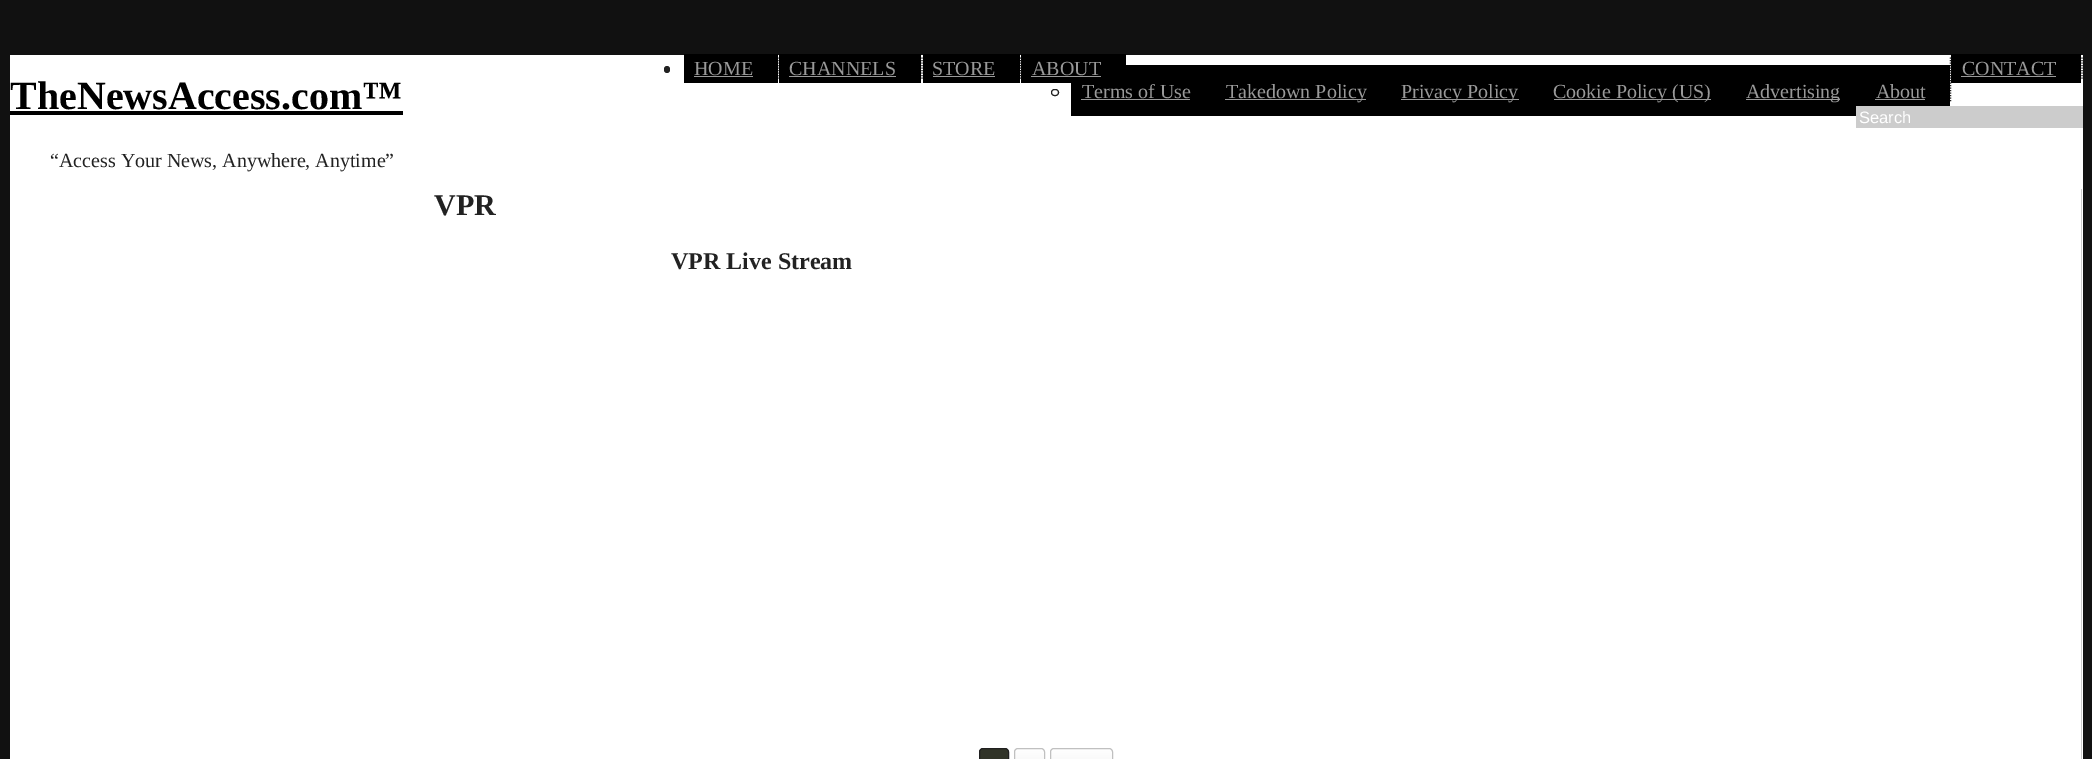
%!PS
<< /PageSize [2092 759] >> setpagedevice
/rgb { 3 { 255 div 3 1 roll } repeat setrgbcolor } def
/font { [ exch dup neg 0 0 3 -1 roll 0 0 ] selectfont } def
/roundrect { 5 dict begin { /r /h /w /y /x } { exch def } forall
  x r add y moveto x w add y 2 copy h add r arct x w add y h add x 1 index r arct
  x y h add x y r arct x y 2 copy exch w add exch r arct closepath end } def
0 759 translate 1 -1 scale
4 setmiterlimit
17 17 17 rgb
0 0 2092 759 rectfill
255 255 255 rgb
10 55 2073 704 rectfill
34 34 34 rgb
1.2 setlinewidth
[1.25 1.25] 0 setdash
778 57.5 moveto 778 80 lineto stroke
664 66 6 7 3 roundrect fill
0 0 0 rgb
684 54 94 29 rectfill
153 153 153 rgb
694 76 59 1 rectfill
34 34 34 rgb
922 57.5 moveto 922 80 lineto stroke
[
  [779 54 142 29 0 0 0]
  [789 76 107 1 153 153 153]
  [1071 65 794 51 0 0 0]
  [1021 54 105 29 0 0 0]
] { aload pop rgb rectfill } forall
34 34 34 rgb
1020.5 57.5 moveto 1020.5 80 lineto stroke
[
  [923 54 97 29 0 0 0]
  [933 76 62 1 153 153 153]
  [1951 54 130 29 0 0 0]
] { aload pop rgb rectfill } forall
34 34 34 rgb
1950.5 57.5 moveto 1950.5 102.5 lineto stroke
153 153 153 rgb
1031 76 70 1 rectfill
34 34 34 rgb
1 setlinewidth
[] 0 setdash
1051.5 89.5 7 6 3 roundrect stroke
[
  [1081 99 109 1 153 153 153]
  [1225 99 141 1 153 153 153]
  [1401 99 118 1 153 153 153]
  [1554 99 157 1 153 153 153]
  [1746 99 94 1 153 153 153]
  [1865 65 85 41 0 0 0]
  [1875 99 50 1 153 153 153]
] { aload pop rgb rectfill } forall
34 34 34 rgb
1.2 setlinewidth
[1.25 1.25] 0 setdash
2082 57.5 moveto 2082 80 lineto stroke
[
  [1961 76 95 1 153 153 153]
  [10 111 393 4 0 0 0]
  [1856 106 227 22 204 204 204]
  [2081 189 1 570 204 204 204]
] { aload pop rgb rectfill } forall
49 52 40 rgb
979.5 748.5 29 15 3.5 roundrect gsave fill grestore
32 32 32 rgb
1 setlinewidth
[] 0 setdash
stroke
gsave
1014 748 31 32 4 roundrect clip newpath
gsave 1014 749 moveto 1045 749 lineto 1045 759 lineto 1014 759 lineto closepath clip newpath
<< /ShadingType 2 /ColorSpace /DeviceRGB /Coords [1015 749 1015 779] /Extend [true true] /Function << /FunctionType 2 /Domain [0 1] /C0 [1 1 1] /C1 [0.941 0.941 0.941] /N 1 >> >> shfill grestore
grestore
192 192 192 rgb
1014.5 748.5 30 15 3.5 roundrect stroke
gsave
1050 748 63 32 4 roundrect clip newpath
gsave 1050 749 moveto 1113 749 lineto 1113 759 lineto 1050 759 lineto closepath clip newpath
<< /ShadingType 2 /ColorSpace /DeviceRGB /Coords [1051 749 1051 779] /Extend [true true] /Function << /FunctionType 2 /Domain [0 1] /C0 [1 1 1] /C1 [0.941 0.941 0.941] /N 1 >> >> shfill grestore
grestore
1050.5 748.5 62 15 3.5 roundrect stroke
/LiberationSerif-Regular 20 font
153 153 153 rgb
[
  [(HOME) 694 75]
  [(CHANNELS) 789 75]
  [(STORE) 932 75]
  [(ABOUT) 1032 75]
  [(Terms of Use) 1082 98]
  [(Takedown Policy) 1226 98]
  [(Privacy Policy) 1401 98]
  [(Cookie Policy \(US\)) 1553 98]
  [(Advertising) 1746 98]
  [(About) 1876 98]
  [(CONTACT) 1962 75]
] { aload pop moveto show } forall
/LiberationSerif-Bold 40 font
0 0 0 rgb
10 109 moveto (TheNewsAccess.com™) show
/LiberationSans-Regular 16.5 font
255 255 255 rgb
1859 123 moveto (Search) show
/LiberationSerif-Regular 20 font
34 34 34 rgb
50 167 moveto (“Access Your News, Anywhere, Anytime”) show
/LiberationSerif-Bold 30 font
434 215 moveto (VPR) show
/LiberationSerif-Bold 24 font
671 269 moveto (VPR Live Stream) show
showpage
